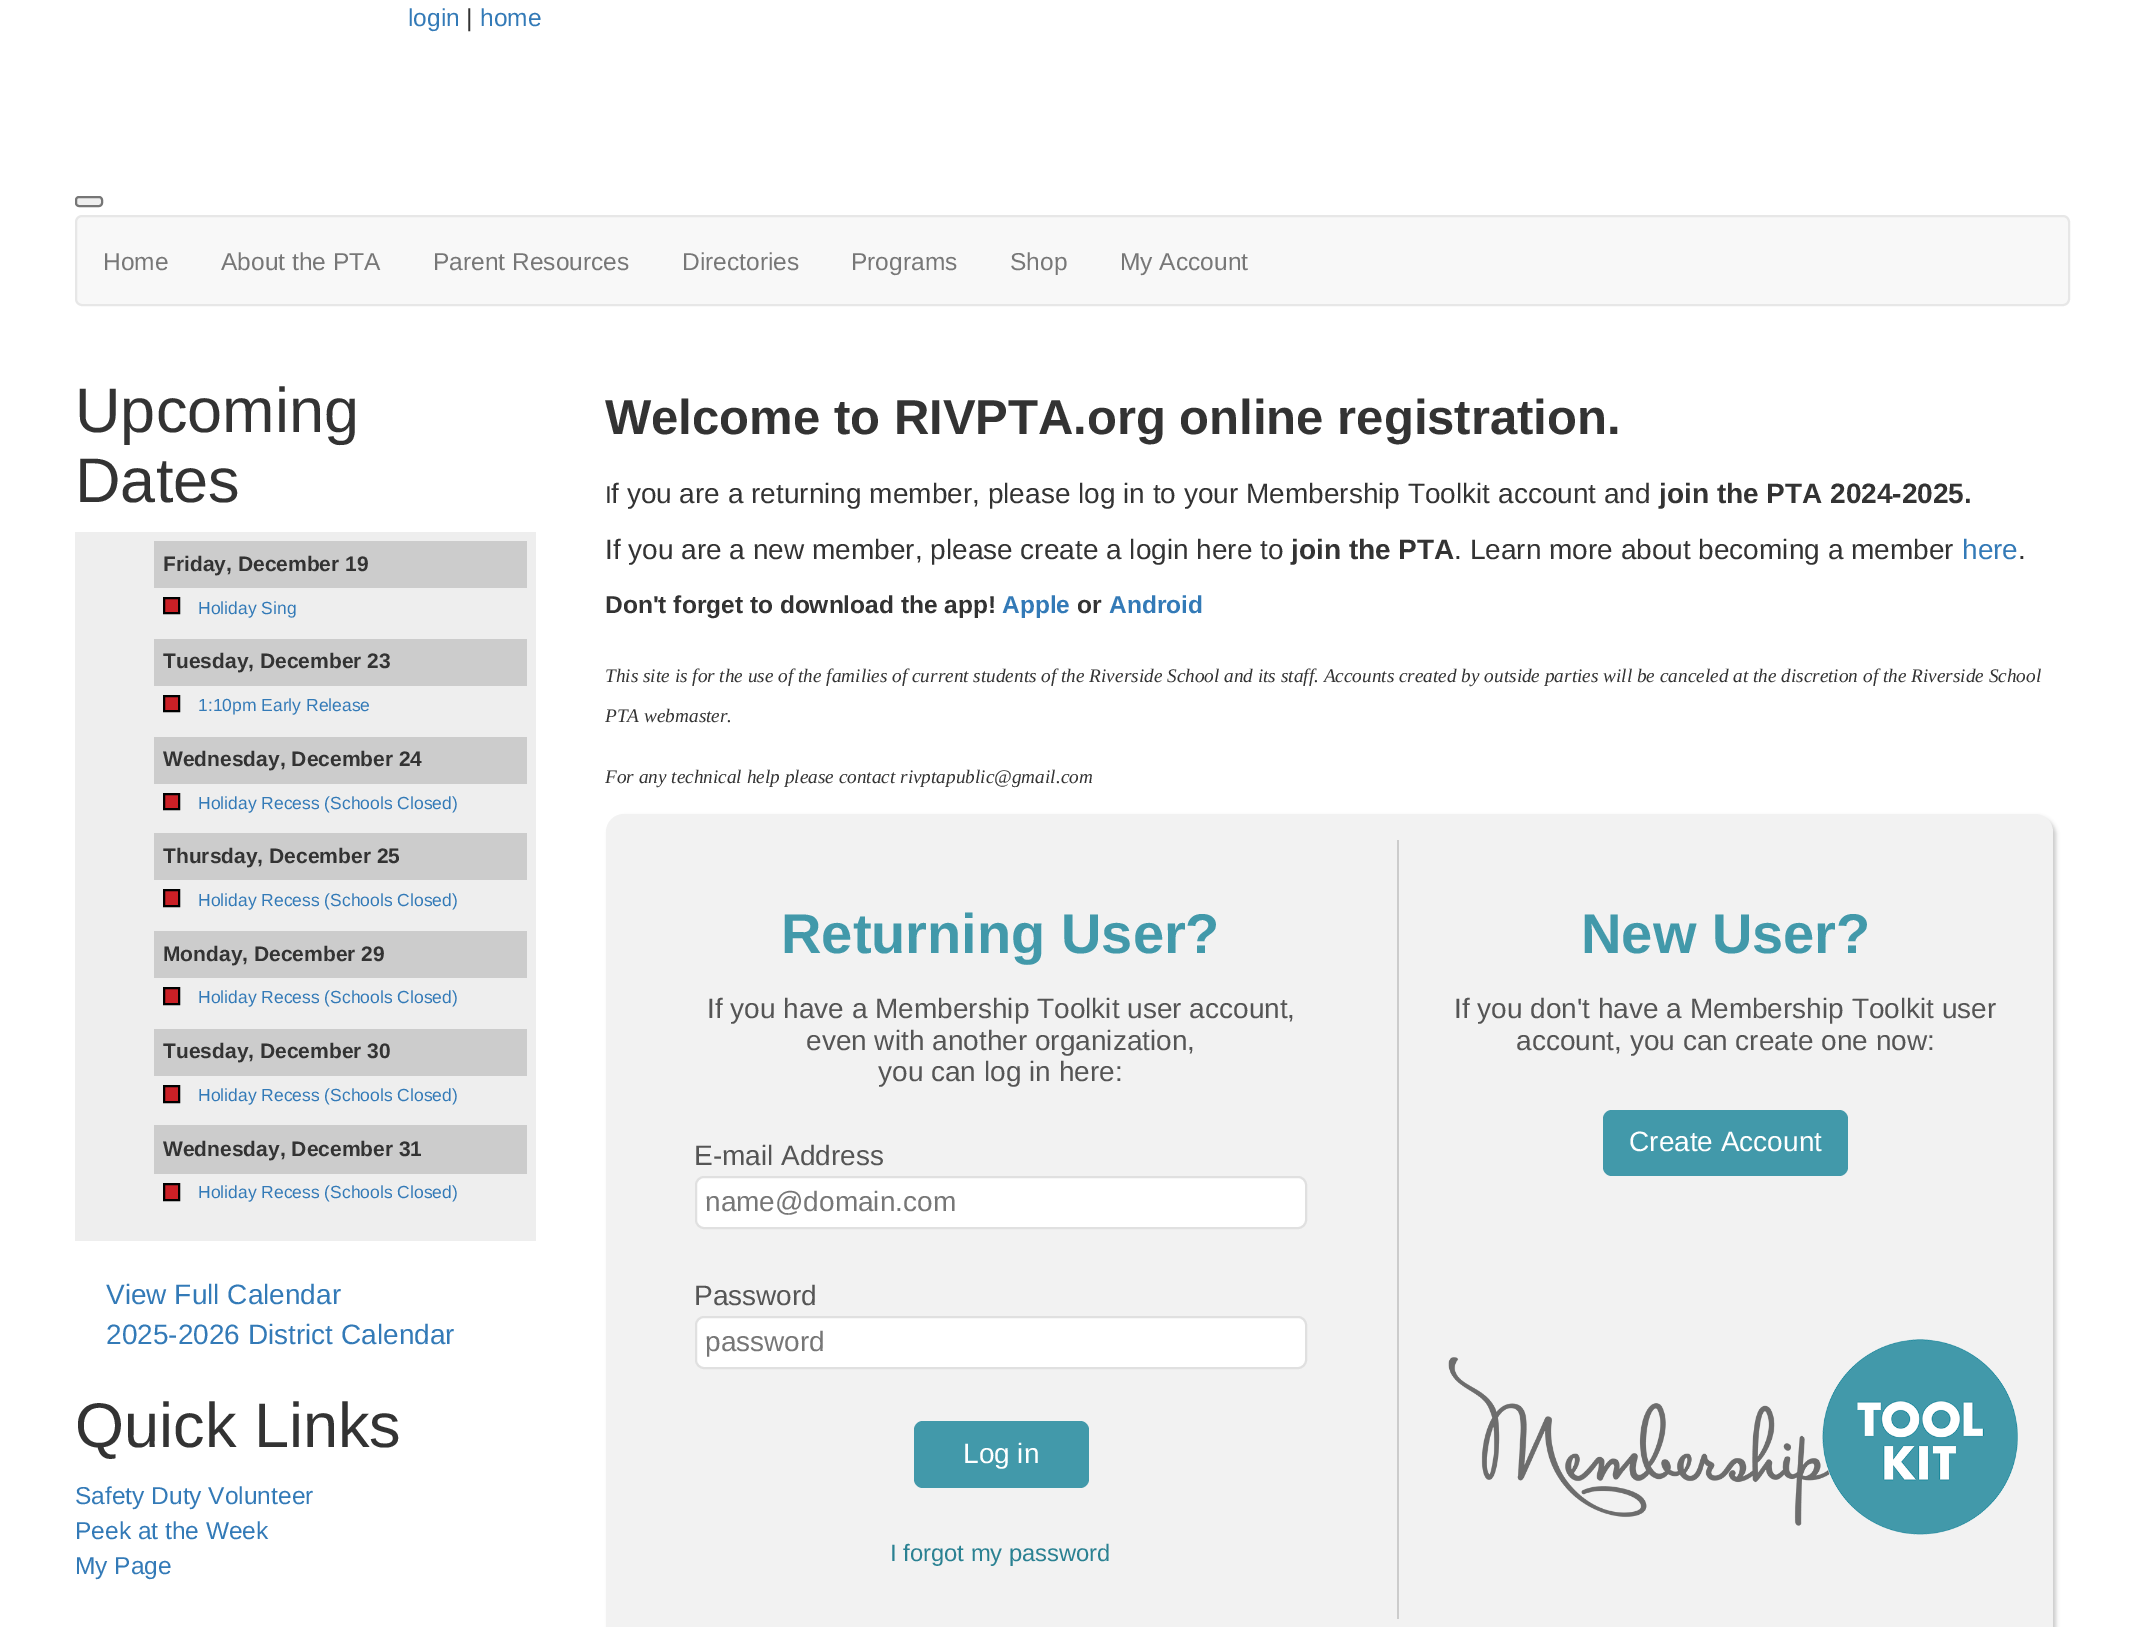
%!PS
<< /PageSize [2144 1627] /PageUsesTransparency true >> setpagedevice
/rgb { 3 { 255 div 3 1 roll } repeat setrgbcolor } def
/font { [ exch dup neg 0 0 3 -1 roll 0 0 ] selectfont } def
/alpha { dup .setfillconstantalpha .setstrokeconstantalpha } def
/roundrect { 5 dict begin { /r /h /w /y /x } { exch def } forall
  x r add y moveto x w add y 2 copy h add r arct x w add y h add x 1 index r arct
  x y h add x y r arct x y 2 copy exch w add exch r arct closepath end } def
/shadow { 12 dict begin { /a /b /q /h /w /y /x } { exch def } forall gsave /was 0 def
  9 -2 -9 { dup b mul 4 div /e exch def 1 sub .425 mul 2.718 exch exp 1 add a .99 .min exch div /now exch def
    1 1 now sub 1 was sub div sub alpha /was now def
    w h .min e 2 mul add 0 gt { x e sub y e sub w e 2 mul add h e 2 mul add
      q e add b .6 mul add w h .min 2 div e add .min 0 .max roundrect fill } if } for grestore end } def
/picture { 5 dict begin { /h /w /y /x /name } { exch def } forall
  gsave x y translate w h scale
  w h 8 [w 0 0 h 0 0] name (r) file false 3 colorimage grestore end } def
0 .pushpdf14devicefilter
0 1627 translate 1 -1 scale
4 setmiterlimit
255 255 255 rgb
0 0 2144 1627 rectfill
239 239 239 rgb
76 197 26 9 3 roundrect gsave fill grestore
118 118 118 rgb
2 setlinewidth
stroke
248 248 248 rgb
76 216 1993 89 6 roundrect gsave fill grestore
231 231 231 rgb
stroke
238 238 238 rgb
75 532 461 709 rectfill
204 204 204 rgb
154 541 373 47 rectfill
203 32 38 rgb
164 598 moveto 179 598 lineto 179 613 lineto 164 613 lineto closepath gsave fill grestore
0 0 0 rgb
stroke
204 204 204 rgb
154 639 373 47 rectfill
203 32 38 rgb
164 696 moveto 179 696 lineto 179 711 lineto 164 711 lineto closepath gsave fill grestore
0 0 0 rgb
stroke
204 204 204 rgb
154 737 373 47 rectfill
203 32 38 rgb
164 794 moveto 179 794 lineto 179 809 lineto 164 809 lineto closepath gsave fill grestore
0 0 0 rgb
stroke
204 204 204 rgb
154 833 373 47 rectfill
203 32 38 rgb
164 890 moveto 179 890 lineto 179 906 lineto 164 906 lineto closepath gsave fill grestore
0 0 0 rgb
stroke
204 204 204 rgb
154 931 373 47 rectfill
203 32 38 rgb
164 988 moveto 179 988 lineto 179 1004 lineto 164 1004 lineto closepath gsave fill grestore
0 0 0 rgb
stroke
204 204 204 rgb
154 1029 373 47 rectfill
203 32 38 rgb
164 1086 moveto 179 1086 lineto 179 1102 lineto 164 1102 lineto closepath gsave fill grestore
0 0 0 rgb
stroke
204 204 204 rgb
154 1125 373 49 rectfill
203 32 38 rgb
164 1184 moveto 179 1184 lineto 179 1200 lineto 164 1200 lineto closepath gsave fill grestore
0 0 0 rgb
stroke
609 817 1447 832 18 2 0.2 shadow
242 242 242 rgb
606 814 1447 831 18 roundrect fill
204 204 204 rgb
1397 840 2 779 rectfill
255 255 255 rgb
696 1177 610 51 8 roundrect gsave fill grestore
224 224 224 rgb
stroke
255 255 255 rgb
696 1317 610 51 8 roundrect gsave fill grestore
224 224 224 rgb
stroke
66 153 170 rgb
914 1421 175 67 9 roundrect fill
1603 1110 245 66 9 roundrect fill
(img/1.rgb) 1448 1339 570 196 picture
/LiberationSans-Regular 24.5 font
51 122 183 rgb
408 26 moveto (login) show
51 51 51 rgb
466 26 moveto (|) show
51 122 183 rgb
480 26 moveto (home) show
119 119 119 rgb
[
  [(Home) 103 270]
  [(About the PTA) 221 270]
  [(Parent Resources) 433 270]
  [(Directories) 682 270]
  [(Programs) 851 270]
  [(Shop) 1010 270]
  [(My Account) 1120 270]
] { aload pop moveto show } forall
/LiberationSans-Regular 63 font
51 51 51 rgb
75 432 moveto (Upcoming) show
75 502 moveto (Dates) show
/LiberationSans-Bold 21 font
163 571 moveto (Friday, December 19) show
/LiberationSans-Regular 17.5 font
51 122 183 rgb
198 614 moveto (Holiday Sing) show
/LiberationSans-Bold 21 font
51 51 51 rgb
163 668 moveto (Tuesday, December 23) show
/LiberationSans-Regular 17.5 font
51 122 183 rgb
198 711 moveto (1:10pm Early Release) show
/LiberationSans-Bold 21 font
51 51 51 rgb
163 766 moveto (Wednesday, December 24) show
/LiberationSans-Regular 17.5 font
51 122 183 rgb
198 809 moveto (Holiday Recess \(Schools Closed\)) show
/LiberationSans-Bold 21 font
51 51 51 rgb
163 863 moveto (Thursday, December 25) show
/LiberationSans-Regular 17.5 font
51 122 183 rgb
198 906 moveto (Holiday Recess \(Schools Closed\)) show
/LiberationSans-Bold 21 font
51 51 51 rgb
163 961 moveto (Monday, December 29) show
/LiberationSans-Regular 17.5 font
51 122 183 rgb
198 1003 moveto (Holiday Recess \(Schools Closed\)) show
/LiberationSans-Bold 21 font
51 51 51 rgb
163 1058 moveto (Tuesday, December 30) show
/LiberationSans-Regular 17.5 font
51 122 183 rgb
198 1101 moveto (Holiday Recess \(Schools Closed\)) show
/LiberationSans-Bold 21 font
51 51 51 rgb
163 1156 moveto (Wednesday, December 31) show
/LiberationSans-Regular 17.5 font
51 122 183 rgb
198 1198 moveto (Holiday Recess \(Schools Closed\)) show
/LiberationSans-Regular 28 font
106 1304 moveto (View Full Calendar) show
106 1344 moveto (2025-2026 District Calendar) show
/LiberationSans-Regular 63 font
51 51 51 rgb
75 1447 moveto (Quick Links) show
/LiberationSans-Regular 24.5 font
51 122 183 rgb
[
  [(Safety Duty Volunteer) 75 1504]
  [(Peek at the Week) 75 1539]
  [(My Page) 75 1574]
] { aload pop moveto show } forall
/LiberationSans-Bold 49 font
51 51 51 rgb
605 434 moveto (Welcome to RIVPTA.org online registration.) show
/LiberationSans-Regular 24.5 font
605 503 moveto (I) show
/LiberationSans-Regular 28 font
611 503 moveto (f you are a returning member, please log in to your Membership Toolkit account and) show
/LiberationSans-Bold 28 font
1659 503 moveto (join the PTA 2024-2025.) show
/LiberationSans-Regular 28 font
605 559 moveto (If you are a new member, please create a login here to) show
/LiberationSans-Bold 28 font
1291 559 moveto (join the PTA) show
/LiberationSans-Regular 28 font
1454 559 moveto (. Learn more about becoming a member) show
51 122 183 rgb
1962 559 moveto (here) show
51 51 51 rgb
2018 559 moveto (.) show
/LiberationSans-Bold 24.5 font
605 613 moveto (Don't forget to download the app!) show
51 122 183 rgb
1002 613 moveto (Apple) show
51 51 51 rgb
1077 613 moveto (or) show
51 122 183 rgb
1109 613 moveto (Android) show
/LiberationSerif-Italic 19.25 font
51 51 51 rgb
[
  [(This site is for the use of the families of current students of the Riverside School and its staff. Accounts created by outside parties will be canceled at the discretion of the Riverside School) 605 682]
  [(PTA webmaster.) 605 722]
  [(For any technical help please contact rivptapublic@gmail.com) 605 783]
] { aload pop moveto show } forall
/LiberationSans-Bold 56 font
66 153 170 rgb
781 953 moveto (Returning User?) show
/LiberationSans-Regular 28 font
85 85 85 rgb
[
  [(If you have a Membership Toolkit user account,) 707 1018]
  [(even with another organization,) 806 1050]
  [(you can log in here:) 878 1081]
  [(E-mail Address) 694 1165]
] { aload pop moveto show } forall
119 119 119 rgb
705 1211 moveto (name@domain.com) show
85 85 85 rgb
694 1305 moveto (Password) show
119 119 119 rgb
705 1351 moveto (password) show
255 255 255 rgb
963 1463 moveto (Log in) show
/LiberationSans-Regular 23.75 font
42 129 146 rgb
890 1561 moveto (I forgot my password) show
/LiberationSans-Bold 56 font
66 153 170 rgb
1581 953 moveto (New User?) show
/LiberationSans-Regular 28 font
85 85 85 rgb
1454 1018 moveto (If you don't have a Membership Toolkit user) show
1516 1050 moveto (account, you can create one now:) show
255 255 255 rgb
1629 1151 moveto (Create Account) show
.poppdf14devicefilter showpage
